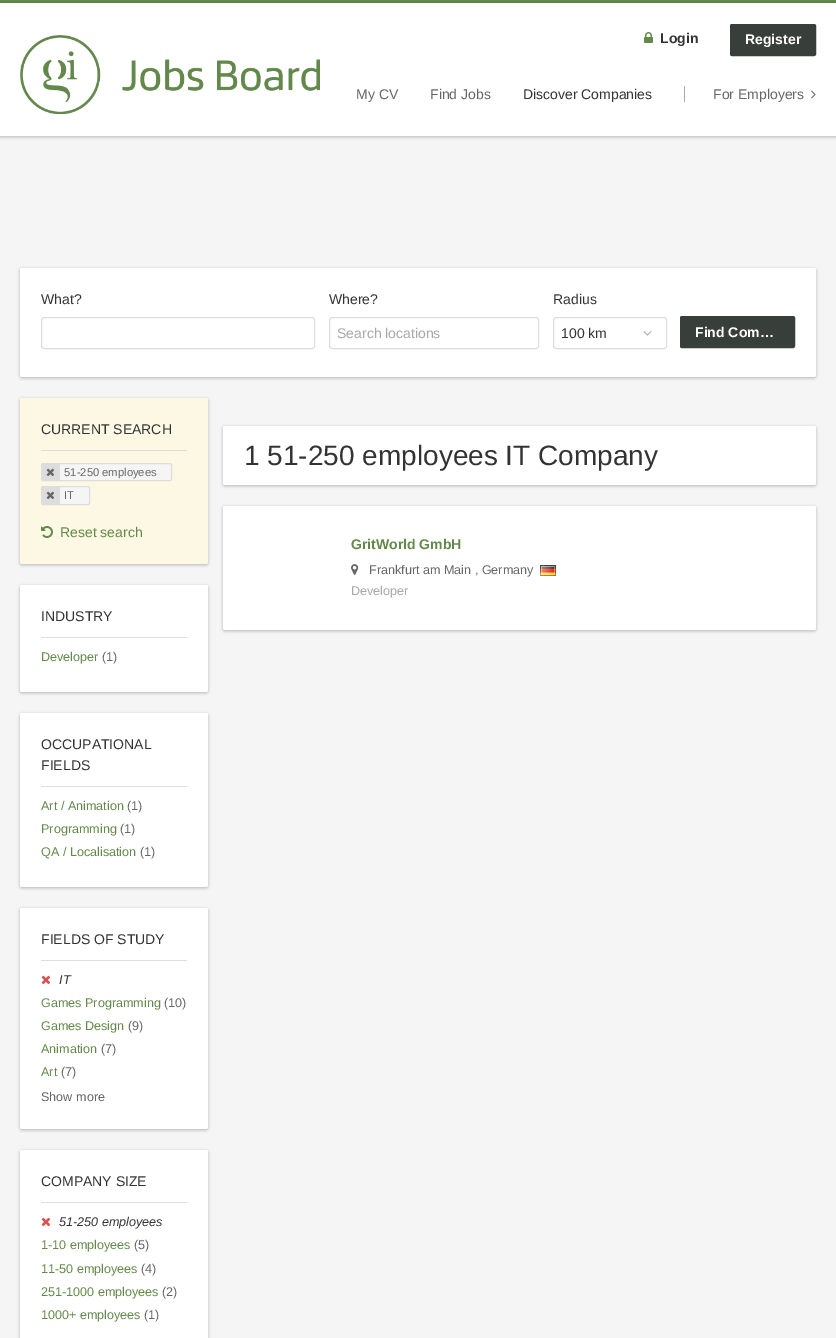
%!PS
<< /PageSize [836 1338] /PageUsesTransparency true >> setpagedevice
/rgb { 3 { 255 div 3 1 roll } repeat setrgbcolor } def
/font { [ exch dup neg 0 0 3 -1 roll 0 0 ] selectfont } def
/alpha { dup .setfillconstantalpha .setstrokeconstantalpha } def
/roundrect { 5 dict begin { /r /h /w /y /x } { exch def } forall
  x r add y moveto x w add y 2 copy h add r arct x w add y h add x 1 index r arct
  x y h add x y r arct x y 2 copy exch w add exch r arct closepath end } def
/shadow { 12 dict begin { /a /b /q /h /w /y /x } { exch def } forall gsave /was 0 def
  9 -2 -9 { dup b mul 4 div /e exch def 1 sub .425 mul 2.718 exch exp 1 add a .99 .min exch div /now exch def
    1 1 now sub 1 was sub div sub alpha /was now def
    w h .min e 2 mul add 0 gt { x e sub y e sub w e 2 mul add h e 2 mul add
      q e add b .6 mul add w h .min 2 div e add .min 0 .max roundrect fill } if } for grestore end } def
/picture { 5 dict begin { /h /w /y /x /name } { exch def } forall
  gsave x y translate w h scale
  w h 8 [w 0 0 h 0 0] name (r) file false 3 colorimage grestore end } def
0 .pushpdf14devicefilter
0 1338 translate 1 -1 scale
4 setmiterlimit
245 245 245 rgb
0 0 836 1338 rectfill
99 137 74 rgb
0 0 836 3 rectfill
0 0 0 rgb
0 4 836 133 0 1.5 0.25 shadow
255 255 255 rgb
0 3 836 133 rectfill
(img/1.rgb) 20 35 300 79 picture
(img/2.rgb) 644 32 9 11 picture
56 62 58 rgb
730.5 24.5 85 31 1.5 roundrect gsave fill grestore
stroke
168 168 168 rgb
684 86 1 16 rectfill
(img/3.rgb) 811 90 5 9 picture
0 0 0 rgb
20 269 796 109 2 1.5 0.25 shadow
255 255 255 rgb
20 268 796 109 2 roundrect fill
221 221 221 rgb
41.5 317.5 273 31 2.5 roundrect stroke
329.5 317.5 209 31 2.5 roundrect stroke
553.5 317.5 113 31 2.5 roundrect stroke
(img/4.rgb) 643 331 9 5 picture
56 62 58 rgb
680.5 316.5 114 31 1.5 roundrect gsave fill grestore
stroke
0 0 0 rgb
20 399 188 166 2 1.5 0.25 shadow
252 248 227 rgb
20 398 188 166 2 roundrect fill
221 221 221 rgb
41 450 146 1 rectfill
245 245 245 rgb
41.5 463.5 130 17 1.5 roundrect gsave fill grestore
221 221 221 rgb
stroke
42 464 18 16 rectfill
(img/5.rgb) 46 468 8 8 picture
245 245 245 rgb
41.5 486.5 48 18 1.5 roundrect gsave fill grestore
221 221 221 rgb
stroke
42 487 18 17 rectfill
(img/5.rgb) 46 491 8 8 picture
(img/6.rgb) 41 526 12 12 picture
0 0 0 rgb
20 586 188 107 2 1.5 0.25 shadow
255 255 255 rgb
20 585 188 107 2 roundrect fill
221 221 221 rgb
41 637 146 1 rectfill
0 0 0 rgb
20 714 188 174 2 1.5 0.25 shadow
255 255 255 rgb
20 713 188 174 2 roundrect fill
221 221 221 rgb
41 786 146 1 rectfill
0 0 0 rgb
20 909 188 221 2 1.5 0.25 shadow
255 255 255 rgb
20 908 188 221 2 roundrect fill
221 221 221 rgb
41 960 146 1 rectfill
(img/7.rgb) 41 975 10 10 picture
0 0 0 rgb
20 1151 188 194 2 1.5 0.25 shadow
255 255 255 rgb
20 1150 188 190 2 roundrect fill
221 221 221 rgb
41 1202 146 1 rectfill
(img/7.rgb) 41 1217 10 10 picture
0 0 0 rgb
223 427 593 59 2 1.5 0.25 shadow
255 255 255 rgb
223 426 593 59 2 roundrect fill
0 0 0 rgb
223 507 593 124 2 1.5 0.25 shadow
255 255 255 rgb
223 506 593 124 2 roundrect fill
(img/8.rgb) 351 564 8 11 picture
(img/9.rgb) 540 565 16 11 picture
/LiberationSans-Bold 14 font
51 51 51 rgb
660 43 moveto (Login) show
255 255 255 rgb
745 44 moveto (Register) show
/LiberationSans-Regular 14 font
102 102 102 rgb
356 99 moveto (My CV) show
430 99 moveto (Find Jobs) show
51 51 51 rgb
523 99 moveto (Discover Companies) show
102 102 102 rgb
713 99 moveto (For Employers) show
51 51 51 rgb
41 304 moveto (What?) show
329 304 moveto (Where?) show
168 168 168 rgb
337 338 moveto (Search locations) show
51 51 51 rgb
553 304 moveto (Radius) show
561 338 moveto (100 km) show
/LiberationSans-Bold 14 font
255 255 255 rgb
695 337 moveto (Find Com…) show
/LiberationSans-Regular 14 font
51 51 51 rgb
41 434 moveto (CURRENT SEARCH) show
/LiberationSans-Regular 11.25 font
102 102 102 rgb
64 476 moveto (51-250 employees) show
64 499 moveto (IT) show
/LiberationSans-Regular 14 font
99 137 74 rgb
60 537 moveto (Reset search) show
51 51 51 rgb
41 621 moveto (INDUSTRY) show
/LiberationSans-Regular 12.6 font
99 137 74 rgb
41 661 moveto (Developer) show
102 102 102 rgb
102 661 moveto (\(1\)) show
/LiberationSans-Regular 14 font
51 51 51 rgb
41 749 moveto (OCCUPATIONAL) show
41 770 moveto (FIELDS) show
/LiberationSans-Regular 12.6 font
99 137 74 rgb
41 810 moveto (Art / Animation) show
102 102 102 rgb
127 810 moveto (\(1\)) show
99 137 74 rgb
41 833 moveto (Programming) show
102 102 102 rgb
120 833 moveto (\(1\)) show
99 137 74 rgb
41 856 moveto (QA / Localisation) show
102 102 102 rgb
140 856 moveto (\(1\)) show
/LiberationSans-Regular 14 font
51 51 51 rgb
41 944 moveto (FIELDS OF STUDY) show
/LiberationSans-Italic 12.6 font
59 984 moveto (IT) show
/LiberationSans-Regular 12.6 font
99 137 74 rgb
41 1007 moveto (Games Programming) show
102 102 102 rgb
164 1007 moveto (\(10\)) show
99 137 74 rgb
41 1030 moveto (Games Design) show
102 102 102 rgb
128 1030 moveto (\(9\)) show
99 137 74 rgb
41 1053 moveto (Animation) show
102 102 102 rgb
101 1053 moveto (\(7\)) show
99 137 74 rgb
41 1076 moveto (Art) show
102 102 102 rgb
61 1076 moveto (\(7\)) show
41 1101 moveto (Show more) show
/LiberationSans-Regular 14 font
51 51 51 rgb
41 1186 moveto (COMPANY SIZE) show
/LiberationSans-Italic 12.6 font
59 1226 moveto (51-250 employees) show
/LiberationSans-Regular 12.6 font
99 137 74 rgb
41 1249 moveto (1-10 employees) show
102 102 102 rgb
134 1249 moveto (\(5\)) show
99 137 74 rgb
41 1273 moveto (11-50 employees) show
102 102 102 rgb
141 1273 moveto (\(4\)) show
99 137 74 rgb
41 1296 moveto (251-1000 employees) show
102 102 102 rgb
162 1296 moveto (\(2\)) show
99 137 74 rgb
41 1319 moveto (1000+ employees) show
102 102 102 rgb
144 1319 moveto (\(1\)) show
/LiberationSans-Regular 28 font
51 51 51 rgb
244 465 moveto (1 51-250 employees IT Company) show
/LiberationSans-Bold 14 font
99 137 74 rgb
351 549 moveto (GritWorld GmbH) show
/LiberationSans-Regular 12.6 font
102 102 102 rgb
369 574 moveto (Frankfurt am Main , Germany) show
168 168 168 rgb
351 595 moveto (Developer) show
.poppdf14devicefilter showpage
